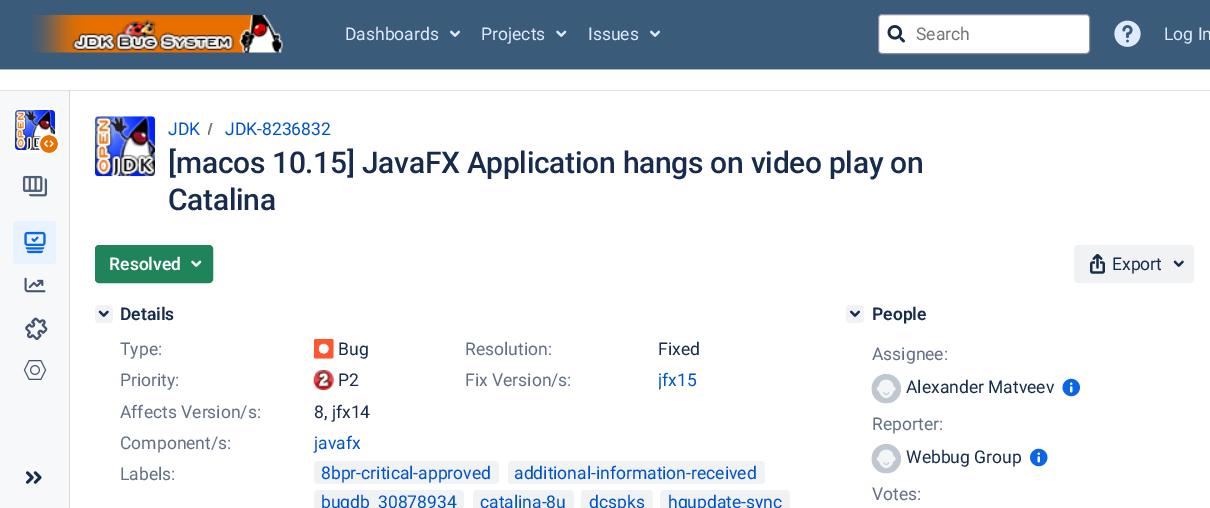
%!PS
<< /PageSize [1210 508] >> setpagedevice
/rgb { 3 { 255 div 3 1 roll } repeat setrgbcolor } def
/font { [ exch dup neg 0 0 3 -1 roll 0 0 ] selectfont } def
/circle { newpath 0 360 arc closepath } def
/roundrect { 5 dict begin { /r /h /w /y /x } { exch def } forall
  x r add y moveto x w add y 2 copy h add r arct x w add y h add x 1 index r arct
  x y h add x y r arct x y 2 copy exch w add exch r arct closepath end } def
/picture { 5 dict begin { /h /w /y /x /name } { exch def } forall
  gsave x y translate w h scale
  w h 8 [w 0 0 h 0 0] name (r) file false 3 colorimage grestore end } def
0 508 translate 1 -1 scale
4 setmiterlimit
255 255 255 rgb
0 0 1210 508 rectfill
59 91 123 rgb
0 0 1210 69 rectfill
164 179 196 rgb
0 69 1210 1 rectfill
(img/1.rgb) 31 15 252 38 picture
(img/2.rgb) 450 30 10 7 picture
(img/3.rgb) 556 30 11 7 picture
(img/2.rgb) 650 30 10 7 picture
255 255 255 rgb
878.5 14.5 211 39 3.5 roundrect gsave fill grestore
133 144 162 rgb
stroke
(img/4.rgb) 887 25 18 18 picture
(img/5.rgb) 1114 20 27 27 picture
[
  [0 90 1210 1 221 224 229]
  [0 91 69 417 247 248 249]
  [69 91 1 417 214 217 223]
] { aload pop rgb rectfill } forall
255 255 255 rgb
3 setlinewidth
14.5 109.5 42 42 4.5 roundrect stroke
(img/6.rgb) 15 110 40 40 picture
49 144 11 circle fill
(img/7.rgb) 40 135 18 18 picture
(img/8.rgb) 22 175 26 22 picture
233 242 255 rgb
13 221 43 43 4 roundrect fill
(img/9.rgb) 24 231 22 23 picture
(img/10.rgb) 24 277 22 16 picture
(img/11.rgb) 25 317 23 23 picture
(img/12.rgb) 23 360 24 20 picture
(img/13.rgb) 26 471 16 13 picture
(img/14.rgb) 95 116 60 61 picture
gsave
208 123 5 12 rectclip
112 112 112 rgb
209 135 moveto 212.5 122.5 lineto 211 122.5 lineto 207.5 135 lineto closepath fill
grestore
31 132 90 rgb
95.5 245.5 117 37 3.5 roundrect gsave fill grestore
1 setlinewidth
stroke
(img/15.rgb) 191 260 11 7 picture
240 242 244 rgb
1074 245 120 38 4 roundrect fill
(img/16.rgb) 1090 254 15 20 picture
(img/17.rgb) 1173 260 11 7 picture
95 305 18 18 4 roundrect fill
(img/18.rgb) 98 310 11 7 picture
(img/19.rgb) 314 339 20 20 picture
(img/20.rgb) 313 370 21 20 picture
314 461 185 23 4 roundrect fill
508 461 257 23 4 roundrect fill
318 490 moveto 460 490 lineto 462 490 464 492 464 494 curveto 464 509 lineto 314 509 lineto 314 494 lineto 314 492 316 490 318 490 curveto closepath fill
477 490 moveto 570 490 lineto 572 490 574 492 574 494 curveto 574 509 lineto 473 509 lineto 473 494 lineto 473 492 475 490 477 490 curveto closepath fill
585 490 moveto 649 490 lineto 651 490 653 492 653 494 curveto 653 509 lineto 581 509 lineto 581 494 lineto 581 492 583 490 585 490 curveto closepath fill
664 490 moveto 786 490 lineto 788 490 790 492 790 494 curveto 790 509 lineto 660 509 lineto 660 494 lineto 660 492 662 490 664 490 curveto closepath fill
846 305 18 18 4 roundrect fill
(img/21.rgb) 850 310 10 7 picture
(img/22.rgb) 871 374 30 30 picture
(img/23.rgb) 1062 378 18 19 picture
(img/22.rgb) 871 444 30 30 picture
(img/24.rgb) 1030 448 18 19 picture
/Roboto-Regular 17.5 font
222 235 255 rgb
[
  [(Dashboards) 345 40]
  [(Projects) 481 40]
  [(Issues) 588 40]
] { aload pop moveto show } forall
117 117 117 rgb
916 40 moveto (Search) show
222 235 255 rgb
1164 40 moveto (Log In) show
0 82 204 rgb
168 135 moveto (JDK) show
225 135 moveto (JDK-8236832) show
/Roboto-Medium 30 font
23 43 77 rgb
168 173 moveto -0.3 0 ([macos 10.15] JavaFX Application hangs on video play on) ashow
168 210 moveto -0.3 0 (Catalina) ashow
/Roboto-SemiBold 17.5 font
255 255 255 rgb
109 270 moveto (Resolved) show
/Roboto-Regular 17.5 font
23 43 77 rgb
1112 270 moveto (Export) show
/Roboto-SemiBold 17.5 font
120 320 moveto (Details) show
/Roboto-Regular 17.5 font
98 111 134 rgb
120 355 moveto (Type:) show
23 43 77 rgb
338 355 moveto (Bug) show
98 111 134 rgb
465 355 moveto (Resolution:) show
23 43 77 rgb
658 355 moveto (Fixed) show
98 111 134 rgb
120 386 moveto (Priority:) show
23 43 77 rgb
338 386 moveto (P2) show
98 111 134 rgb
465 386 moveto (Fix Version/s:) show
gsave
659 368 39 25 rectclip
0 82 204 rgb
658 386 moveto (jfx15) show
grestore
120 418 moveto (Affects Version/s:) show
23 43 77 rgb
314 418 moveto (8, jfx14) show
98 111 134 rgb
120 449 moveto (Component/s:) show
0 82 204 rgb
314 449 moveto (javafx) show
98 111 134 rgb
120 480 moveto (Labels:) show
0 82 204 rgb
[
  [(8bpr-critical-approved) 321 479]
  [(additional-information-received) 514 479]
  [(bugdb_30878934) 321 508]
  [(catalina-8u) 480 508]
  [(dcspks) 589 508]
  [(hgupdate-sync) 668 508]
] { aload pop moveto show } forall
/Roboto-SemiBold 17.5 font
23 43 77 rgb
872 320 moveto (People) show
/Roboto-Regular 17.5 font
98 111 134 rgb
872 360 moveto (Assignee:) show
23 43 77 rgb
906 393 moveto (Alexander Matveev) show
98 111 134 rgb
872 430 moveto (Reporter:) show
23 43 77 rgb
906 463 moveto (Webbug Group) show
98 111 134 rgb
872 500 moveto (Votes:) show
showpage
